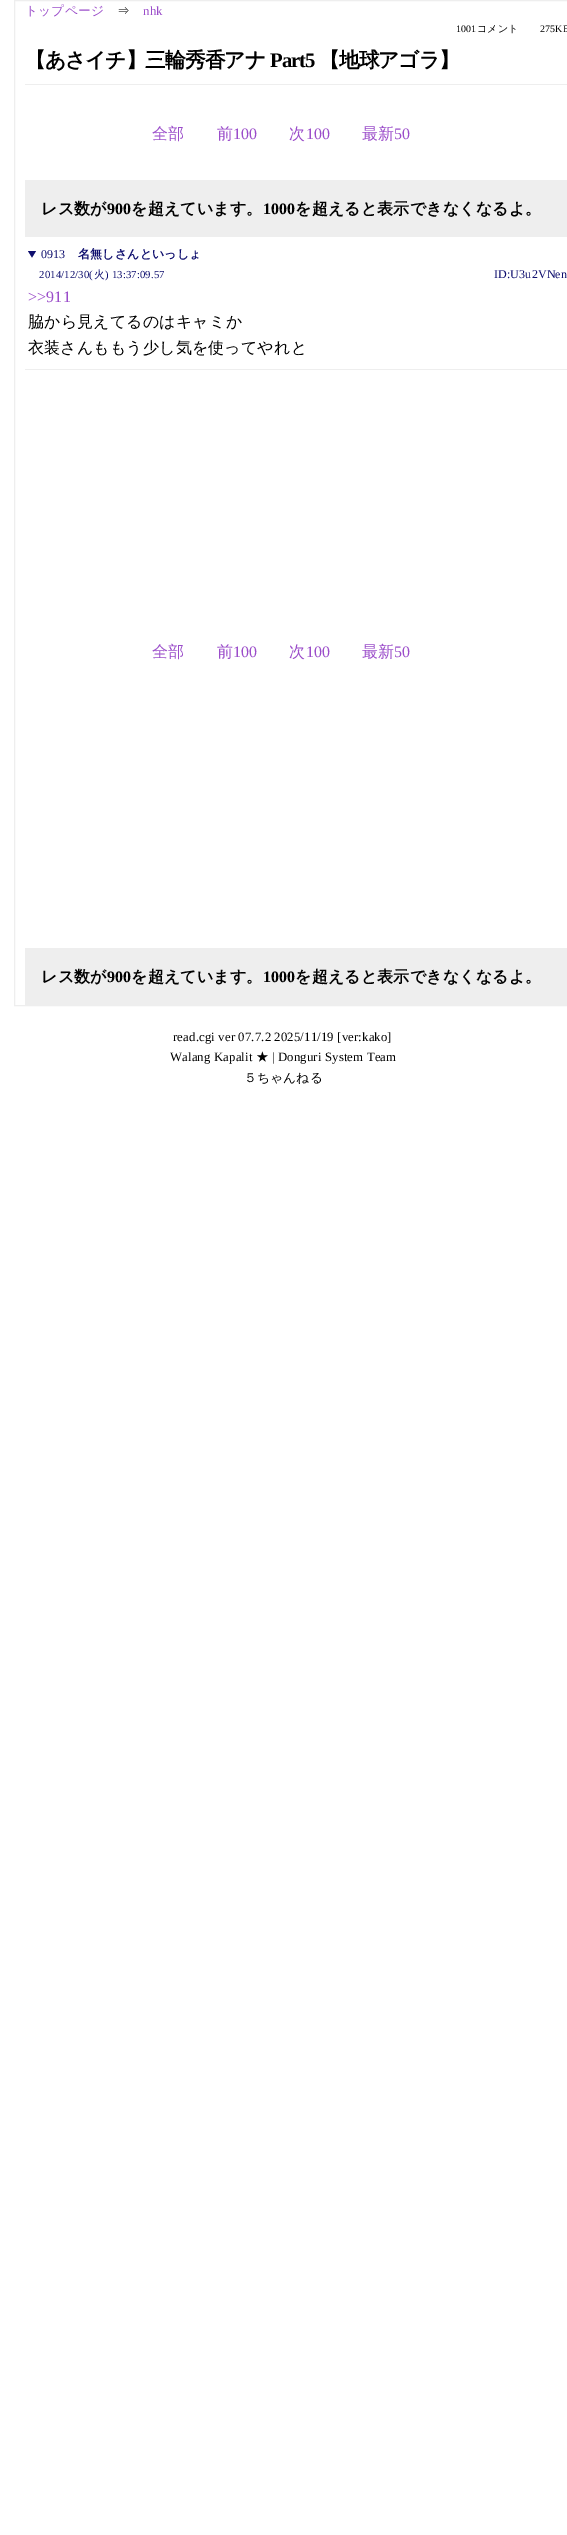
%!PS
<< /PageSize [567 2535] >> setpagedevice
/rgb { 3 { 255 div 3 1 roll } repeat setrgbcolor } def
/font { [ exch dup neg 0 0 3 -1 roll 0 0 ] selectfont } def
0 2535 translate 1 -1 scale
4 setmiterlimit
255 255 255 rgb
0 0 567 2535 rectfill
238 238 238 rgb
14.5 0.5 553 1005 rectstroke
[
  [25 84 542 1 238 238 238]
  [25 180 542 57 238 238 238]
  [25 369 542 1 238 238 238]
] { aload pop rgb rectfill } forall
14 14 110 rgb
28 251 moveto 36 251 lineto 32 257.5 lineto closepath fill
238 238 238 rgb
25 948 542 57 rectfill
/WenQuanYiZenHei-Medium 12.75 font
155 77 202 rgb
25 15 moveto 0.15 0 (トップページ) ashow
0 0 0 rgb
117 15 moveto 0.15 0 (⇒) ashow
/LiberationSerif-Regular 12.75 font
155 77 202 rgb
143 15 moveto 0.15 0 (nhk) ashow
/LiberationSerif-Regular 10 font
0 0 0 rgb
456 32 moveto 0.15 0 (1001) ashow
/WenQuanYiZenHei-Medium 10 font
477 32 moveto 0.15 0 (コメント) ashow
/LiberationSerif-Regular 10 font
540 32 moveto 0.15 0 (275KB) ashow
/WenQuanYiZenHei-Bold 20.75 font
25 67 moveto -1 0 (【あさイチ】三輪秀香アナ) ashow
/LiberationSerif-Bold 20.75 font
270 67 moveto -1 0 (Part5) ashow
/WenQuanYiZenHei-Bold 20.75 font
319 67 moveto -1 0 (【地球アゴラ】) ashow
/WenQuanYiZenHei-Medium 16 font
155 77 202 rgb
152 139 moveto 0.15 0 (全部) ashow
217 139 moveto 0.15 0 (前) ashow
/LiberationSerif-Regular 16 font
233 139 moveto 0.15 0 (100) ashow
/WenQuanYiZenHei-Medium 16 font
289 139 moveto 0.15 0 (次) ashow
/LiberationSerif-Regular 16 font
306 139 moveto 0.15 0 (100) ashow
/WenQuanYiZenHei-Medium 16 font
362 139 moveto 0.15 0 (最新) ashow
/LiberationSerif-Regular 16 font
394 139 moveto 0.15 0 (50) ashow
/WenQuanYiZenHei-Bold 16 font
0 0 0 rgb
41 214 moveto 0.15 0 (レス数が) ashow
/LiberationSerif-Bold 16 font
107 214 moveto 0.15 0 (900) ashow
/WenQuanYiZenHei-Bold 16 font
131 214 moveto 0.15 0 (を超えています。) ashow
/LiberationSerif-Bold 16 font
263 214 moveto 0.15 0 (1000) ashow
/WenQuanYiZenHei-Bold 16 font
295 214 moveto 0.15 0 (を超えると表示できなくなるよ。) ashow
/LiberationSerif-Regular 12 font
14 14 110 rgb
41 258 moveto 0.15 0 (0913) ashow
/WenQuanYiZenHei-Bold 12 font
78 258 moveto 0.15 0 (名無しさんといっしょ) ashow
/LiberationSerif-Regular 10.75 font
39 278 moveto 0.15 0 (2014/12/30\() ashow
/WenQuanYiZenHei-Medium 10.75 font
94 278 moveto 0.15 0 (火) ashow
/LiberationSerif-Regular 10.75 font
105 278 moveto 0.15 0 (\) 13:37:09.57) ashow
/LiberationSerif-Regular 12 font
494 278 moveto 0.15 0 (ID:U3u2VNen) ashow
/LiberationSerif-Regular 16 font
155 77 202 rgb
28 302 moveto 0.15 0 (>>911) ashow
/WenQuanYiZenHei-Medium 16 font
0 0 0 rgb
28 327 moveto 0.15 0 (脇から見えてるのはキャミか) ashow
28 353 moveto 0.15 0 (衣装さんももう少し気を使ってやれと) ashow
155 77 202 rgb
152 657 moveto 0.15 0 (全部) ashow
217 657 moveto 0.15 0 (前) ashow
/LiberationSerif-Regular 16 font
233 657 moveto 0.15 0 (100) ashow
/WenQuanYiZenHei-Medium 16 font
289 657 moveto 0.15 0 (次) ashow
/LiberationSerif-Regular 16 font
306 657 moveto 0.15 0 (100) ashow
/WenQuanYiZenHei-Medium 16 font
362 657 moveto 0.15 0 (最新) ashow
/LiberationSerif-Regular 16 font
394 657 moveto 0.15 0 (50) ashow
/WenQuanYiZenHei-Bold 16 font
0 0 0 rgb
41 982 moveto 0.15 0 (レス数が) ashow
/LiberationSerif-Bold 16 font
107 982 moveto 0.15 0 (900) ashow
/WenQuanYiZenHei-Bold 16 font
131 982 moveto 0.15 0 (を超えています。) ashow
/LiberationSerif-Bold 16 font
263 982 moveto 0.15 0 (1000) ashow
/WenQuanYiZenHei-Bold 16 font
295 982 moveto 0.15 0 (を超えると表示できなくなるよ。) ashow
/LiberationSerif-Regular 12.75 font
173 1041 moveto 0.15 0 (read.cgi ver 07.7.2 2025/11/19 [ver:kako]) ashow
170 1061 moveto 0.15 0 (Walang Kapalit) ashow
/WenQuanYiZenHei-Medium 12.75 font
256 1061 moveto 0.15 0 (★) ashow
/LiberationSerif-Regular 12.75 font
272 1061 moveto 0.15 0 (| Donguri System Team) ashow
/WenQuanYiZenHei-Medium 12.75 font
244 1082 moveto 0.15 0 (５ちゃんねる) ashow
showpage
